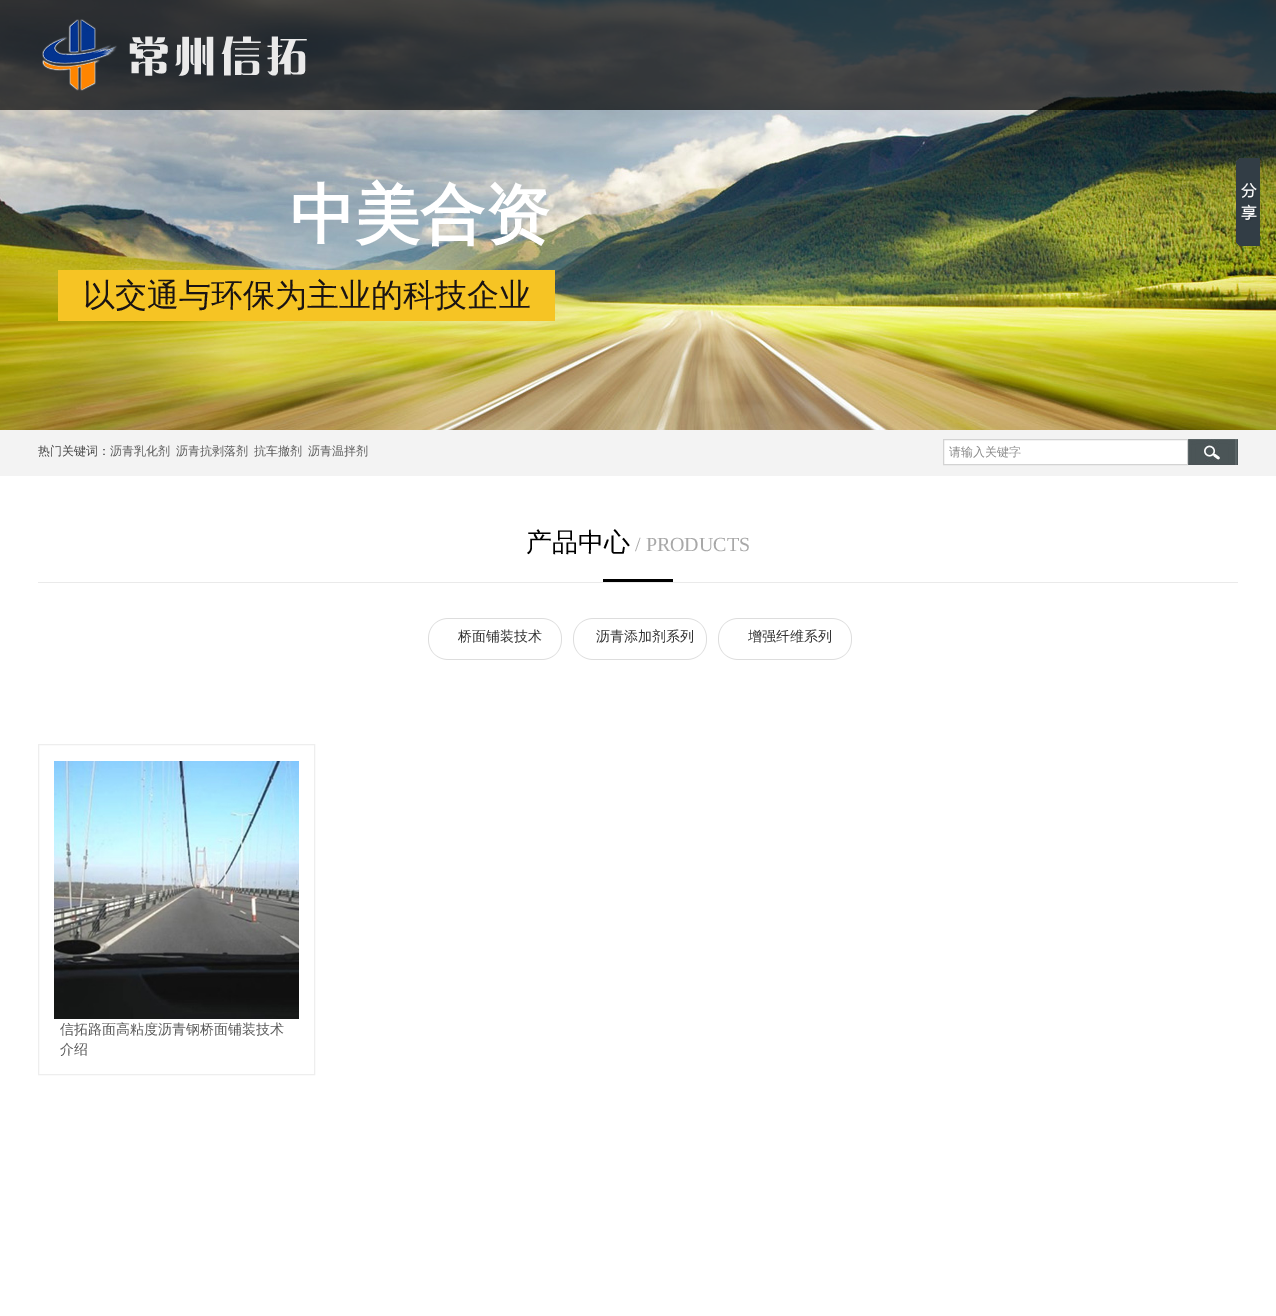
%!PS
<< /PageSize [1276 1316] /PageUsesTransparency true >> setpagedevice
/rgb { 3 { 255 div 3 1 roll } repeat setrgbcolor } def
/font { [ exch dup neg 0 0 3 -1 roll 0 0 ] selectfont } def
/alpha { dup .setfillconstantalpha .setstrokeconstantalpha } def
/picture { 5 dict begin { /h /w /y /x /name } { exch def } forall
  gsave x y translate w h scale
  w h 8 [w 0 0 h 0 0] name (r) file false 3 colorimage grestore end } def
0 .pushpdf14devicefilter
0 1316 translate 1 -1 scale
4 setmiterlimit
255 255 255 rgb
0 0 1276 1316 rectfill
(img/1.rgb) 0 0 1276 430 picture
0.7 alpha
0 0 0 rgb
0 0 1276 110 rectfill
1 alpha
(img/2.rgb) 42 19 265 72 picture
246 196 36 rgb
58 270 497 51 rectfill
243 243 243 rgb
0 430 1276 46 rectfill
255 255 255 rgb
943.5 439.5 moveto 1187.5 439.5 lineto 1187.5 464.5 lineto 943.5 464.5 lineto closepath gsave fill grestore
211 211 211 rgb
stroke
(img/3.rgb) 1188 439 50 26 picture
0 0 0 rgb
603 579 70 3 rectfill
234 234 234 rgb
38 582 1200 1 rectfill
(img/4.rgb) 428 618 134 42 picture
(img/4.rgb) 573 618 134 42 picture
(img/4.rgb) 718 618 134 42 picture
238 238 238 rgb
38.5 744.5 276 330 rectstroke
(img/5.rgb) 54 761 245 258 picture
(img/6.rgb) 1236 158 24 88 picture
/WenQuanYiZenHei-Bold 65 font
255 255 255 rgb
290 237 moveto (中美合资) show
/WenQuanYiZenHei-Medium 32 font
26 20 19 rgb
83 306 moveto (以交通与环保为主业的科技企业) show
/WenQuanYiZenHei-Medium 12 font
67 67 67 rgb
38 455 moveto (热门关键词：) show
90 90 90 rgb
[
  [(沥青乳化剂) 110 455]
  [(沥青抗剥落剂) 176 455]
  [(抗车撤剂) 254 455]
  [(沥青温拌剂) 308 455]
] { aload pop moveto show } forall
136 136 136 rgb
949 456 moveto (请输入关键字) show
/WenQuanYiZenHei-Medium 26 font
0 0 0 rgb
526 551 moveto (产品中心) show
/LiberationSerif-Regular 20 font
168 168 168 rgb
635 551 moveto (/ PRODUCTS) show
/WenQuanYiZenHei-Medium 14 font
51 51 51 rgb
[
  [(桥面铺装技术) 458 641]
  [(沥青添加剂系列) 596 641]
  [(增强纤维系列) 748 641]
] { aload pop moveto show } forall
90 90 90 rgb
60 1034 moveto (信拓路面高粘度沥青钢桥面铺装技术) show
60 1054 moveto (介绍) show
.poppdf14devicefilter showpage
